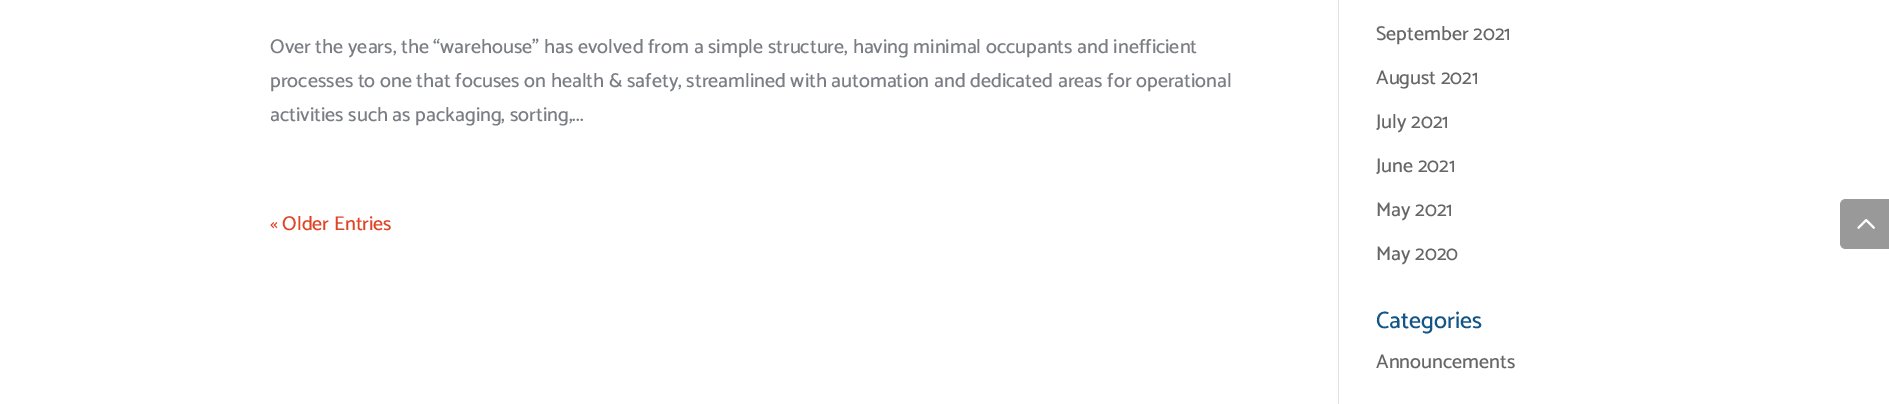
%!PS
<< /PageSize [1889 404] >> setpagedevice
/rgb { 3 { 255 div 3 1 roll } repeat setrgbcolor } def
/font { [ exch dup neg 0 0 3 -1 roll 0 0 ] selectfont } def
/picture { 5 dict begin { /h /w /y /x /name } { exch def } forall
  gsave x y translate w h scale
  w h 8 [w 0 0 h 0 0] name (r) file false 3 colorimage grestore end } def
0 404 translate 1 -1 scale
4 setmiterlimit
255 255 255 rgb
0 0 1889 404 rectfill
226 226 226 rgb
1338 0 1 404 rectfill
153 153 153 rgb
1846 199 moveto 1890 199 lineto 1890 249 lineto 1846 249 lineto 1842.5 249 1840 246.5 1840 243 curveto 1840 205 lineto 1840 201.5 1842.5 199 1846 199 curveto closepath fill
(img/1.rgb) 1857 219 18 10 picture
/Catamaran-Thin 20 font
122 126 132 rgb
[
  [(Over the years, the “warehouse” has evolved from a simple structure, having minimal occupants and inefficient) 270 53]
  [(processes to one that focuses on health & safety, streamlined with automation and dedicated areas for operational) 270 87]
  [(activities such as packaging, sorting,...) 270 121]
] { aload pop moveto show } forall
222 69 38 rgb
270 230 moveto (« Older Entries) show
102 102 102 rgb
[
  [(September 2021) 1376 40]
  [(August 2021) 1376 84]
  [(July 2021) 1376 128]
  [(June 2021) 1376 172]
  [(May 2021) 1376 216]
  [(May 2020) 1376 260]
] { aload pop moveto show } forall
/Catamaran-Thin 23.75 font
18 86 135 rgb
1376 328 moveto (Categories) show
/Catamaran-Thin 20 font
102 102 102 rgb
1376 368 moveto (Announcements) show
showpage
